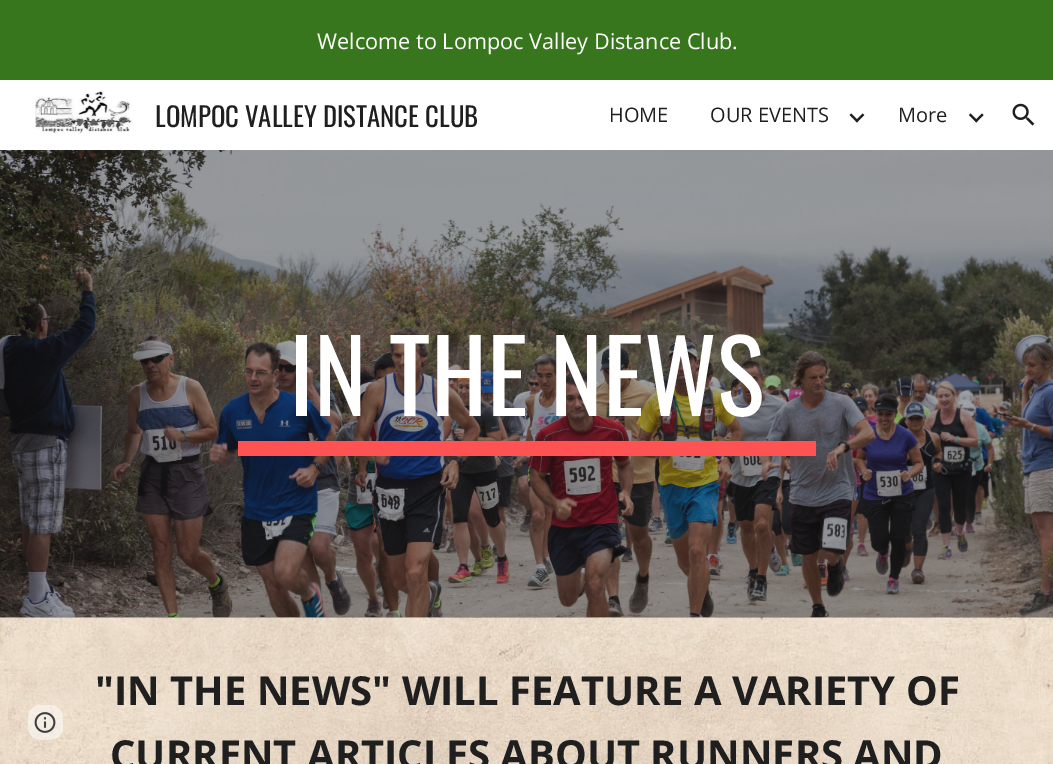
%!PS
<< /PageSize [1053 764] /PageUsesTransparency true >> setpagedevice
/rgb { 3 { 255 div 3 1 roll } repeat setrgbcolor } def
/font { [ exch dup neg 0 0 3 -1 roll 0 0 ] selectfont } def
/alpha { dup .setfillconstantalpha .setstrokeconstantalpha } def
/roundrect { 5 dict begin { /r /h /w /y /x } { exch def } forall
  x r add y moveto x w add y 2 copy h add r arct x w add y h add x 1 index r arct
  x y h add x y r arct x y 2 copy exch w add exch r arct closepath end } def
/picture { 5 dict begin { /h /w /y /x /name } { exch def } forall
  gsave x y translate w h scale
  w h 8 [w 0 0 h 0 0] name (r) file false 3 colorimage grestore end } def
0 .pushpdf14devicefilter
0 764 translate 1 -1 scale
4 setmiterlimit
255 255 255 rgb
0 0 1053 764 rectfill
56 118 29 rgb
0 0 1053 80 rectfill
(img/1.rgb) 35 90 98 44 picture
(img/2.rgb) 849 113 16 10 picture
(img/3.rgb) 968 113 16 10 picture
(img/4.rgb) 1012 103 23 23 picture
(img/6.rgb) 0 150 1053 468 picture
(img/7.rgb) 0 617 1053 147 picture
0.5 alpha
255 255 255 rgb
28 705 35 35 13 roundrect fill
1 alpha
(img/5.rgb) 34 712 22 21 picture
255 82 82 rgb
238 441 578 15 rectfill
/OpenSans-Regular 21.7 font
255 255 255 rgb
317 49 moveto (Welcome to Lompoc Valley Distance Club.) show
/Oswald-Regular 26.75 font
31 31 31 rgb
155 127 moveto (LOMPOC VALLEY DISTANCE CLUB) show
/OpenSans-Regular 20 font
[
  [(HOME) 609 122]
  [(OUR EVENTS) 710 122]
  [(More) 898 122]
] { aload pop moveto show } forall
/Oswald-Regular 100 font
255 255 255 rgb
289 416 moveto (IN THE NEWS) show
/OpenSans-Bold 40 font
31 31 31 rgb
95 705 moveto ("IN THE NEWS" WILL FEATURE A VARIETY OF) show
110 769 moveto (CURRENT ARTICLES ABOUT RUNNERS AND) show
.poppdf14devicefilter showpage
